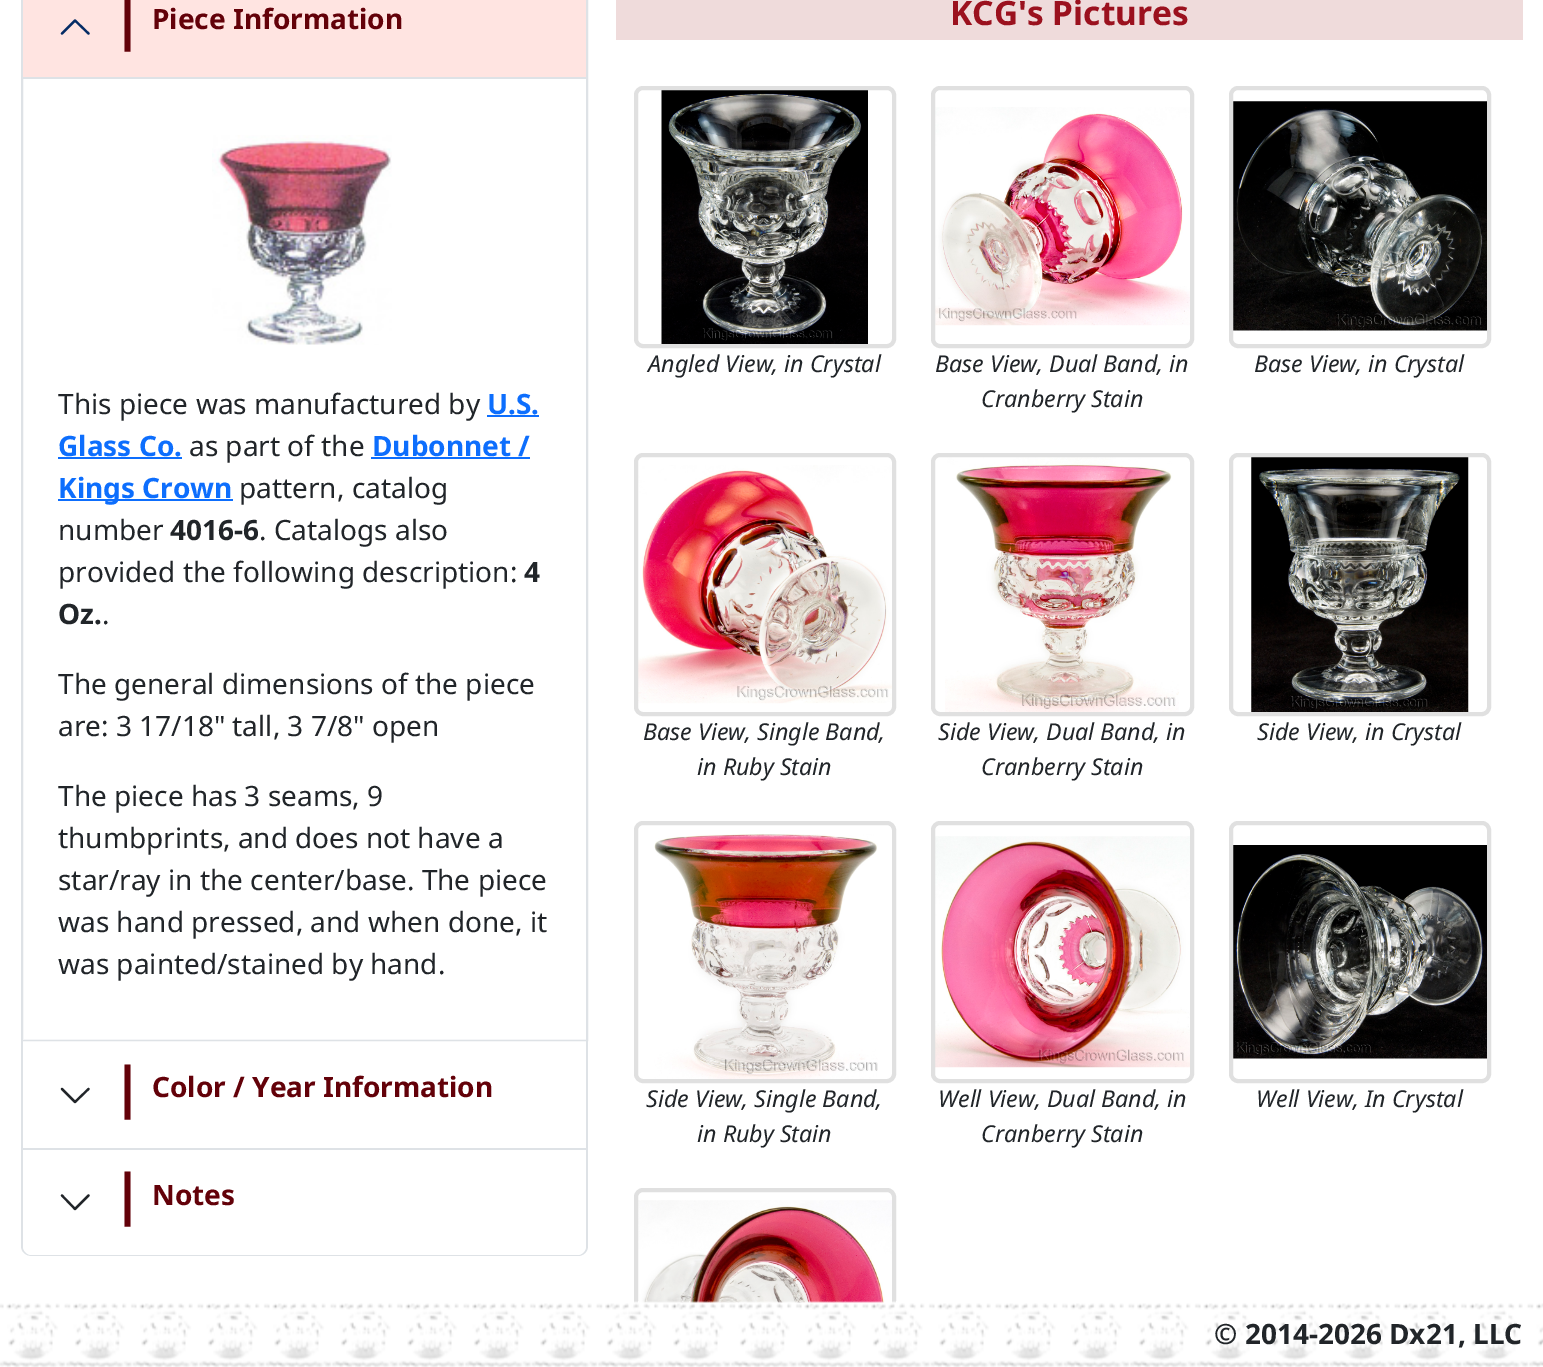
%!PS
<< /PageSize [1543 1367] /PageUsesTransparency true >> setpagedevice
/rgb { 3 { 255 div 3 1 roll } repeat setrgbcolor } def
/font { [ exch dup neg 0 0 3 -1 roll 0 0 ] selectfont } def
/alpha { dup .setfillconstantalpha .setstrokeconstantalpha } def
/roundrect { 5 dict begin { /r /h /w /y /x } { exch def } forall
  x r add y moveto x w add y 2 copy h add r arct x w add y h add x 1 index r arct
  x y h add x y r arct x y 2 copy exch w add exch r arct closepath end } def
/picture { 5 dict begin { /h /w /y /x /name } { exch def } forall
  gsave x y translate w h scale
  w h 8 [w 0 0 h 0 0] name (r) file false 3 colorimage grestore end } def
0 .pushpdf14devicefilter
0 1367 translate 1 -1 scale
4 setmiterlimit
255 255 255 rgb
0 0 1543 1367 rectfill
222 226 230 rgb
2 setlinewidth
22 -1 565 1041 rectstroke
255 228 225 rgb
23 0 563 77 rectfill
222 226 230 rgb
23 77 563 2 rectfill
5 44 101 rgb
2.2 setlinewidth
1 setlinecap
1 setlinejoin
88.5 33.5 moveto 75 20.5 lineto 62 33.5 lineto stroke
0.7 alpha
255 255 255 rgb
23 1039 563 1 rectfill
1 alpha
(img/1.rgb) 212 135 180 210 picture
[
  [487 415 52 2 13 110 253]
  [58 457 124 2 13 110 253]
  [371 457 159 2 13 110 253]
  [58 499 175 2 13 110 253]
  [586 1041 2 109 222 226 230]
  [21 1148 567 2 222 226 230]
  [21 1041 2 109 222 226 230]
] { aload pop rgb rectfill } forall
33 37 41 rgb
62 1089 moveto 75 1102 lineto 88.5 1089 lineto stroke
222 226 230 rgb
21 1150 moveto 588 1150 lineto 588 1246 lineto 588 1252 583 1256 578 1256 curveto 32 1256 lineto 26 1256 21 1252 21 1246 curveto closepath 23 1150 moveto 586 1150 lineto 586 1246 lineto 586 1251 582 1255 578 1255 curveto 32 1255 lineto 27 1255 23 1251 23 1246 curveto closepath eofill
255 255 255 rgb
23 1150 moveto 586 1150 lineto 586 1246 lineto 586 1251 582 1255 577 1255 curveto 32 1255 lineto 27 1255 23 1251 23 1246 curveto closepath fill
33 37 41 rgb
62 1195.5 moveto 75 1209 lineto 88.5 1195.5 lineto stroke
239 219 219 rgb
616 0 907 40 rectfill
(img/2.rgb) 661 90 207 254 picture
224 224 224 rgb
4 setlinewidth
0 setlinecap
0 setlinejoin
636 88 258 258 7 roundrect stroke
(img/3.rgb) 935 107 255 219 picture
933 88 259 258 7 roundrect stroke
(img/4.rgb) 1233 101 254 230 picture
1231 88 258 258 7 roundrect stroke
(img/5.rgb) 638 465 254 239 picture
636 455 258 259 7 roundrect stroke
(img/6.rgb) 945 457 234 255 picture
933 455 259 259 7 roundrect stroke
(img/7.rgb) 1251 457 218 255 picture
1231 455 258 259 7 roundrect stroke
(img/8.rgb) 654 834 224 245 picture
636 823 258 258 7 roundrect stroke
(img/9.rgb) 935 836 255 232 picture
933 823 259 258 7 roundrect stroke
(img/10.rgb) 1233 845 254 214 picture
1231 823 258 258 7 roundrect stroke
(img/11.rgb) 638 1200 254 103 picture
636 1190 258 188 7 roundrect stroke
(img/12.rgb) 0 1301 1543 66 picture
/NotoSans-Bold 56 font
99 1 9 rgb
112 39 moveto (|) show
/NotoSans-Bold 28 font
152 29 moveto (Piece Information) show
/NotoSans-Regular 28 font
33 37 41 rgb
58 414 moveto (This piece was manufactured by) show
/NotoSans-Bold 28 font
13 110 253 rgb
487 414 moveto (U.S.) show
58 456 moveto (Glass Co.) show
/NotoSans-Regular 28 font
33 37 41 rgb
189 456 moveto (as part of the) show
/NotoSans-Bold 28 font
13 110 253 rgb
372 456 moveto (Dubonnet /) show
58 498 moveto (Kings Crown) show
/NotoSans-Regular 28 font
33 37 41 rgb
239 498 moveto (pattern, catalog) show
58 540 moveto (number) show
/NotoSans-Bold 28 font
170 540 moveto (4016-6) show
/NotoSans-Regular 28 font
259 540 moveto (. Catalogs also) show
58 582 moveto (provided the following description:) show
/NotoSans-Bold 28 font
524 582 moveto (4) show
58 624 moveto (Oz.) show
/NotoSans-Regular 28 font
[
  [(.) 102 624]
  [(The general dimensions of the piece) 58 694]
  [(are: 3 17/18" tall, 3 7/8" open) 58 736]
  [(The piece has 3 seams, 9) 58 806]
  [(thumbprints, and does not have a) 58 848]
  [(star/ray in the center/base. The piece) 58 890]
  [(was hand pressed, and when done, it) 58 932]
  [(was painted/stained by hand.) 58 974]
] { aload pop moveto show } forall
/NotoSans-Bold 56 font
99 1 9 rgb
112 1107 moveto (|) show
/NotoSans-Bold 28 font
152 1097 moveto (Color / Year Information) show
/NotoSans-Bold 56 font
112 1214 moveto (|) show
/NotoSans-Bold 28 font
152 1205 moveto (Notes) show
/NotoSans-Bold 33.5 font
155 17 30 rgb
950 25 moveto (KCG's Pictures) show
/NotoSans-Italic 23.25 font
33 37 41 rgb
[
  [(Angled View, in Crystal) 648 372]
  [(Base View, Dual Band, in) 935 372]
  [(Cranberry Stain) 981 407]
  [(Base View, in Crystal) 1254 372]
  [(Base View, Single Band,) 643 740]
  [(in Ruby Stain) 697 775]
  [(Side View, Dual Band, in) 938 740]
  [(Cranberry Stain) 981 775]
  [(Side View, in Crystal) 1257 740]
  [(Side View, Single Band,) 646 1107]
  [(in Ruby Stain) 697 1142]
  [(Well View, Dual Band, in) 938 1107]
  [(Cranberry Stain) 981 1142]
  [(Well View, In Crystal) 1256 1107]
] { aload pop moveto show } forall
/NotoSans-Bold 28 font
1214 1344 moveto (© 2014-2026 Dx21, LLC) show
.poppdf14devicefilter showpage
